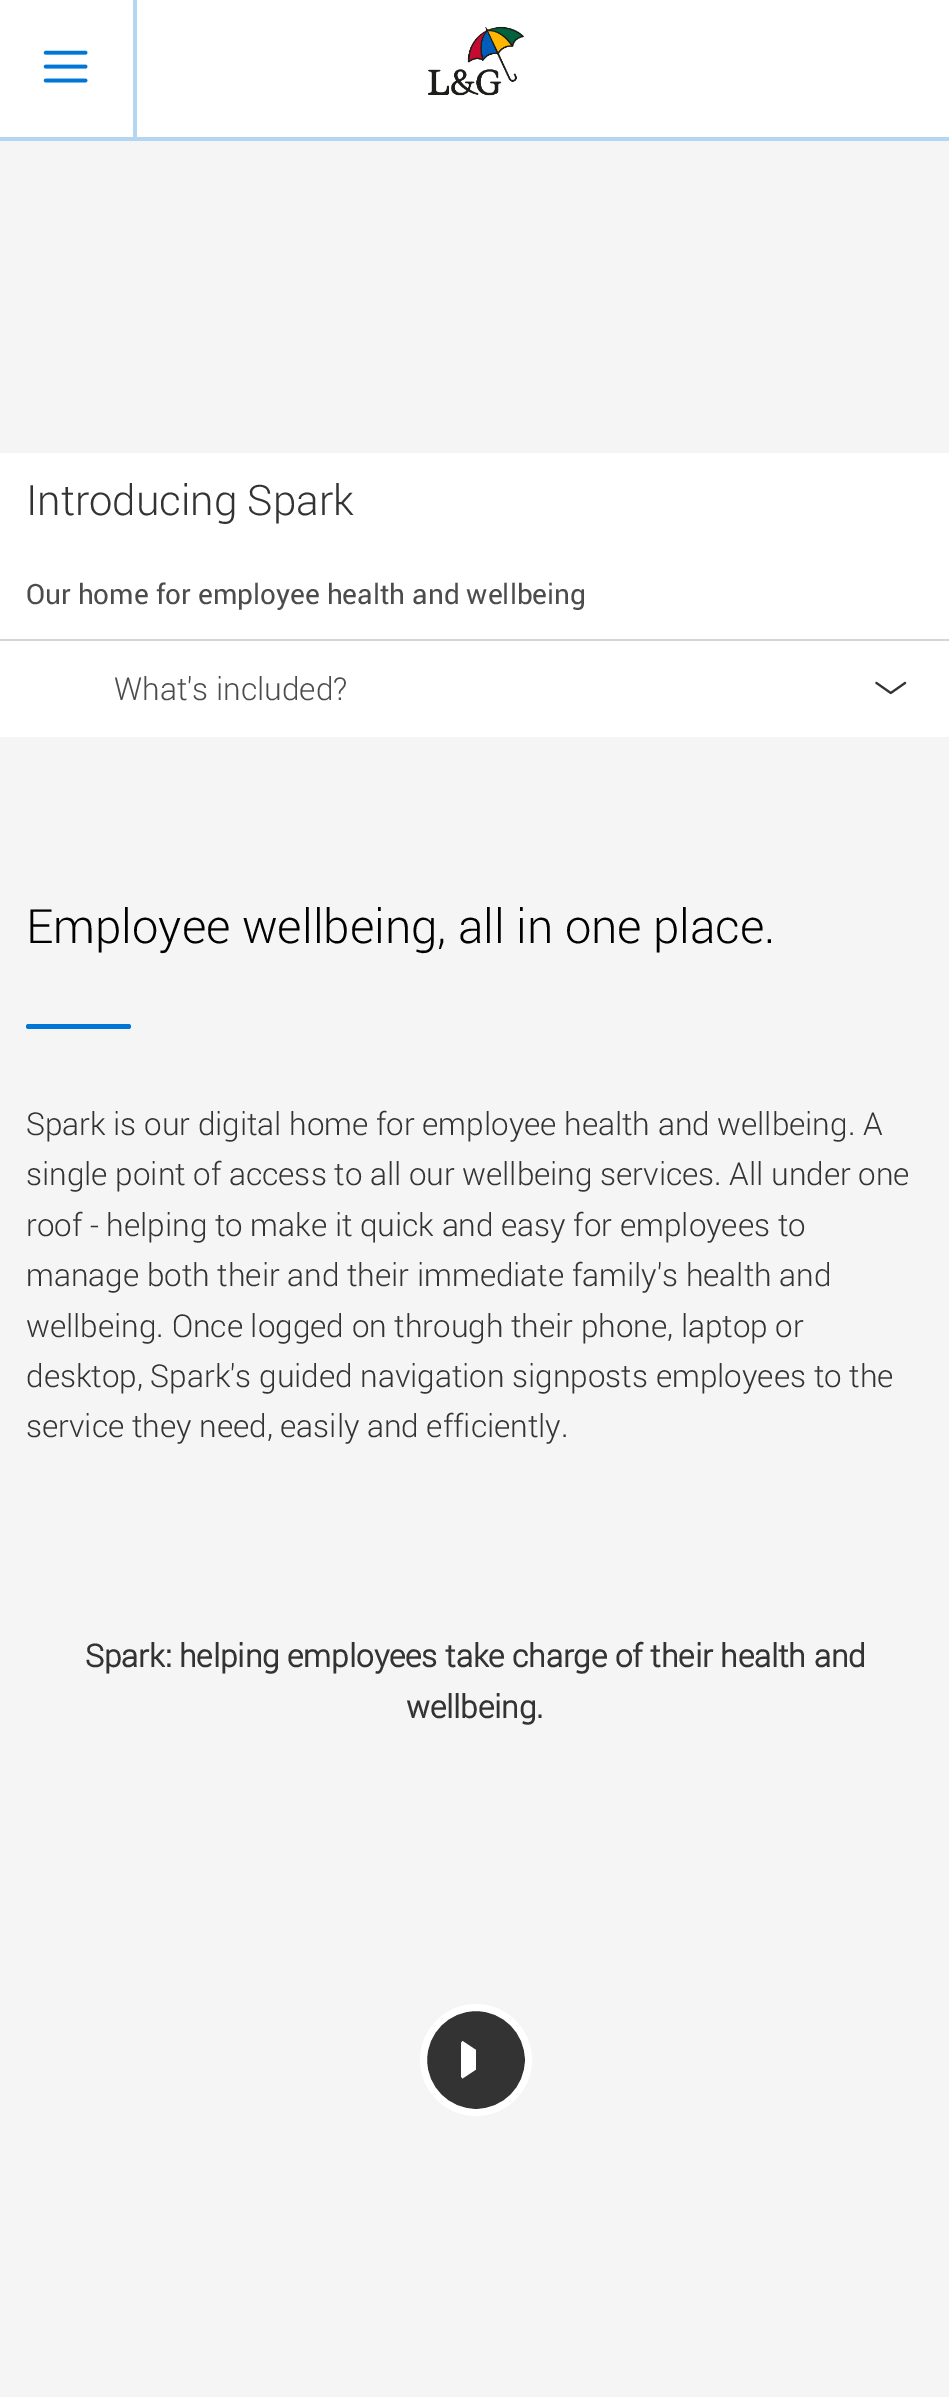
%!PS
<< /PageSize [949 2397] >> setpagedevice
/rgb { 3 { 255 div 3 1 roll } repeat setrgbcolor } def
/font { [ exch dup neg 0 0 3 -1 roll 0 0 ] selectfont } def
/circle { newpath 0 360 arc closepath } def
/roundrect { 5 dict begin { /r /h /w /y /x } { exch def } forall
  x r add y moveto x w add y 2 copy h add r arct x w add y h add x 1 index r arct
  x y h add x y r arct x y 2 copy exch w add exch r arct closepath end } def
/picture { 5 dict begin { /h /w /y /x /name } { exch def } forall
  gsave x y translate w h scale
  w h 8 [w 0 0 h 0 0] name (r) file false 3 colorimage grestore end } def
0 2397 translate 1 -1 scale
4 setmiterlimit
245 245 245 rgb
0 0 949 2397 rectfill
[
  [0 0 949 137 255 255 255]
  [0 137 949 4 179 214 243]
  [133 0 4 137 179 214 243]
] { aload pop rgb rectfill } forall
(img/1.rgb) 43 50 45 33 picture
(img/2.rgb) 427 26 97 70 picture
[
  [0 639 949 2 213 213 213]
  [0 453 949 186 255 255 255]
  [0 641 949 96 255 255 255]
] { aload pop rgb rectfill } forall
(img/3.rgb) 875 681 32 14 picture
0 118 214 rgb
26 1024 105 5 2.5 roundrect fill
51 51 51 rgb
476 2060 52.5 circle gsave fill grestore
255 255 255 rgb
7 setlinewidth
stroke
461 2043 moveto 462.5 2041 lineto 476 2050 lineto 476 2069.5 lineto 462.5 2078.5 lineto 461 2076.5 lineto closepath fill
/Roboto-Light 42 font
51 51 51 rgb
26 515 moveto (Introducing Spark) show
/Roboto-Regular 28 font
76 76 76 rgb
26 604 moveto (Our home for employee health and wellbeing) show
/Roboto-Light 31.5 font
114 700 moveto (What's included?) show
/Roboto-Light 47.25 font
0 0 0 rgb
26 943 moveto (Employee wellbeing, all in one place.) show
/Roboto-Light 31.5 font
51 51 51 rgb
[
  [(Spark is our digital home for employee health and wellbeing. A) 26 1135]
  [(single point of access to all our wellbeing services. All under one) 26 1185]
  [(roof - helping to make it quick and easy for employees to) 26 1236]
  [(manage both their and their immediate family's health and) 26 1286]
  [(wellbeing. Once logged on through their phone, laptop or) 26 1337]
  [(desktop, Spark's guided navigation signposts employees to the) 26 1387]
  [(service they need, easily and efficiently.) 26 1437]
] { aload pop moveto show } forall
/Roboto-Bold 31.5 font
85 1667 moveto (Spark: helping employees take charge of their health and) show
406 1718 moveto (wellbeing.) show
showpage
